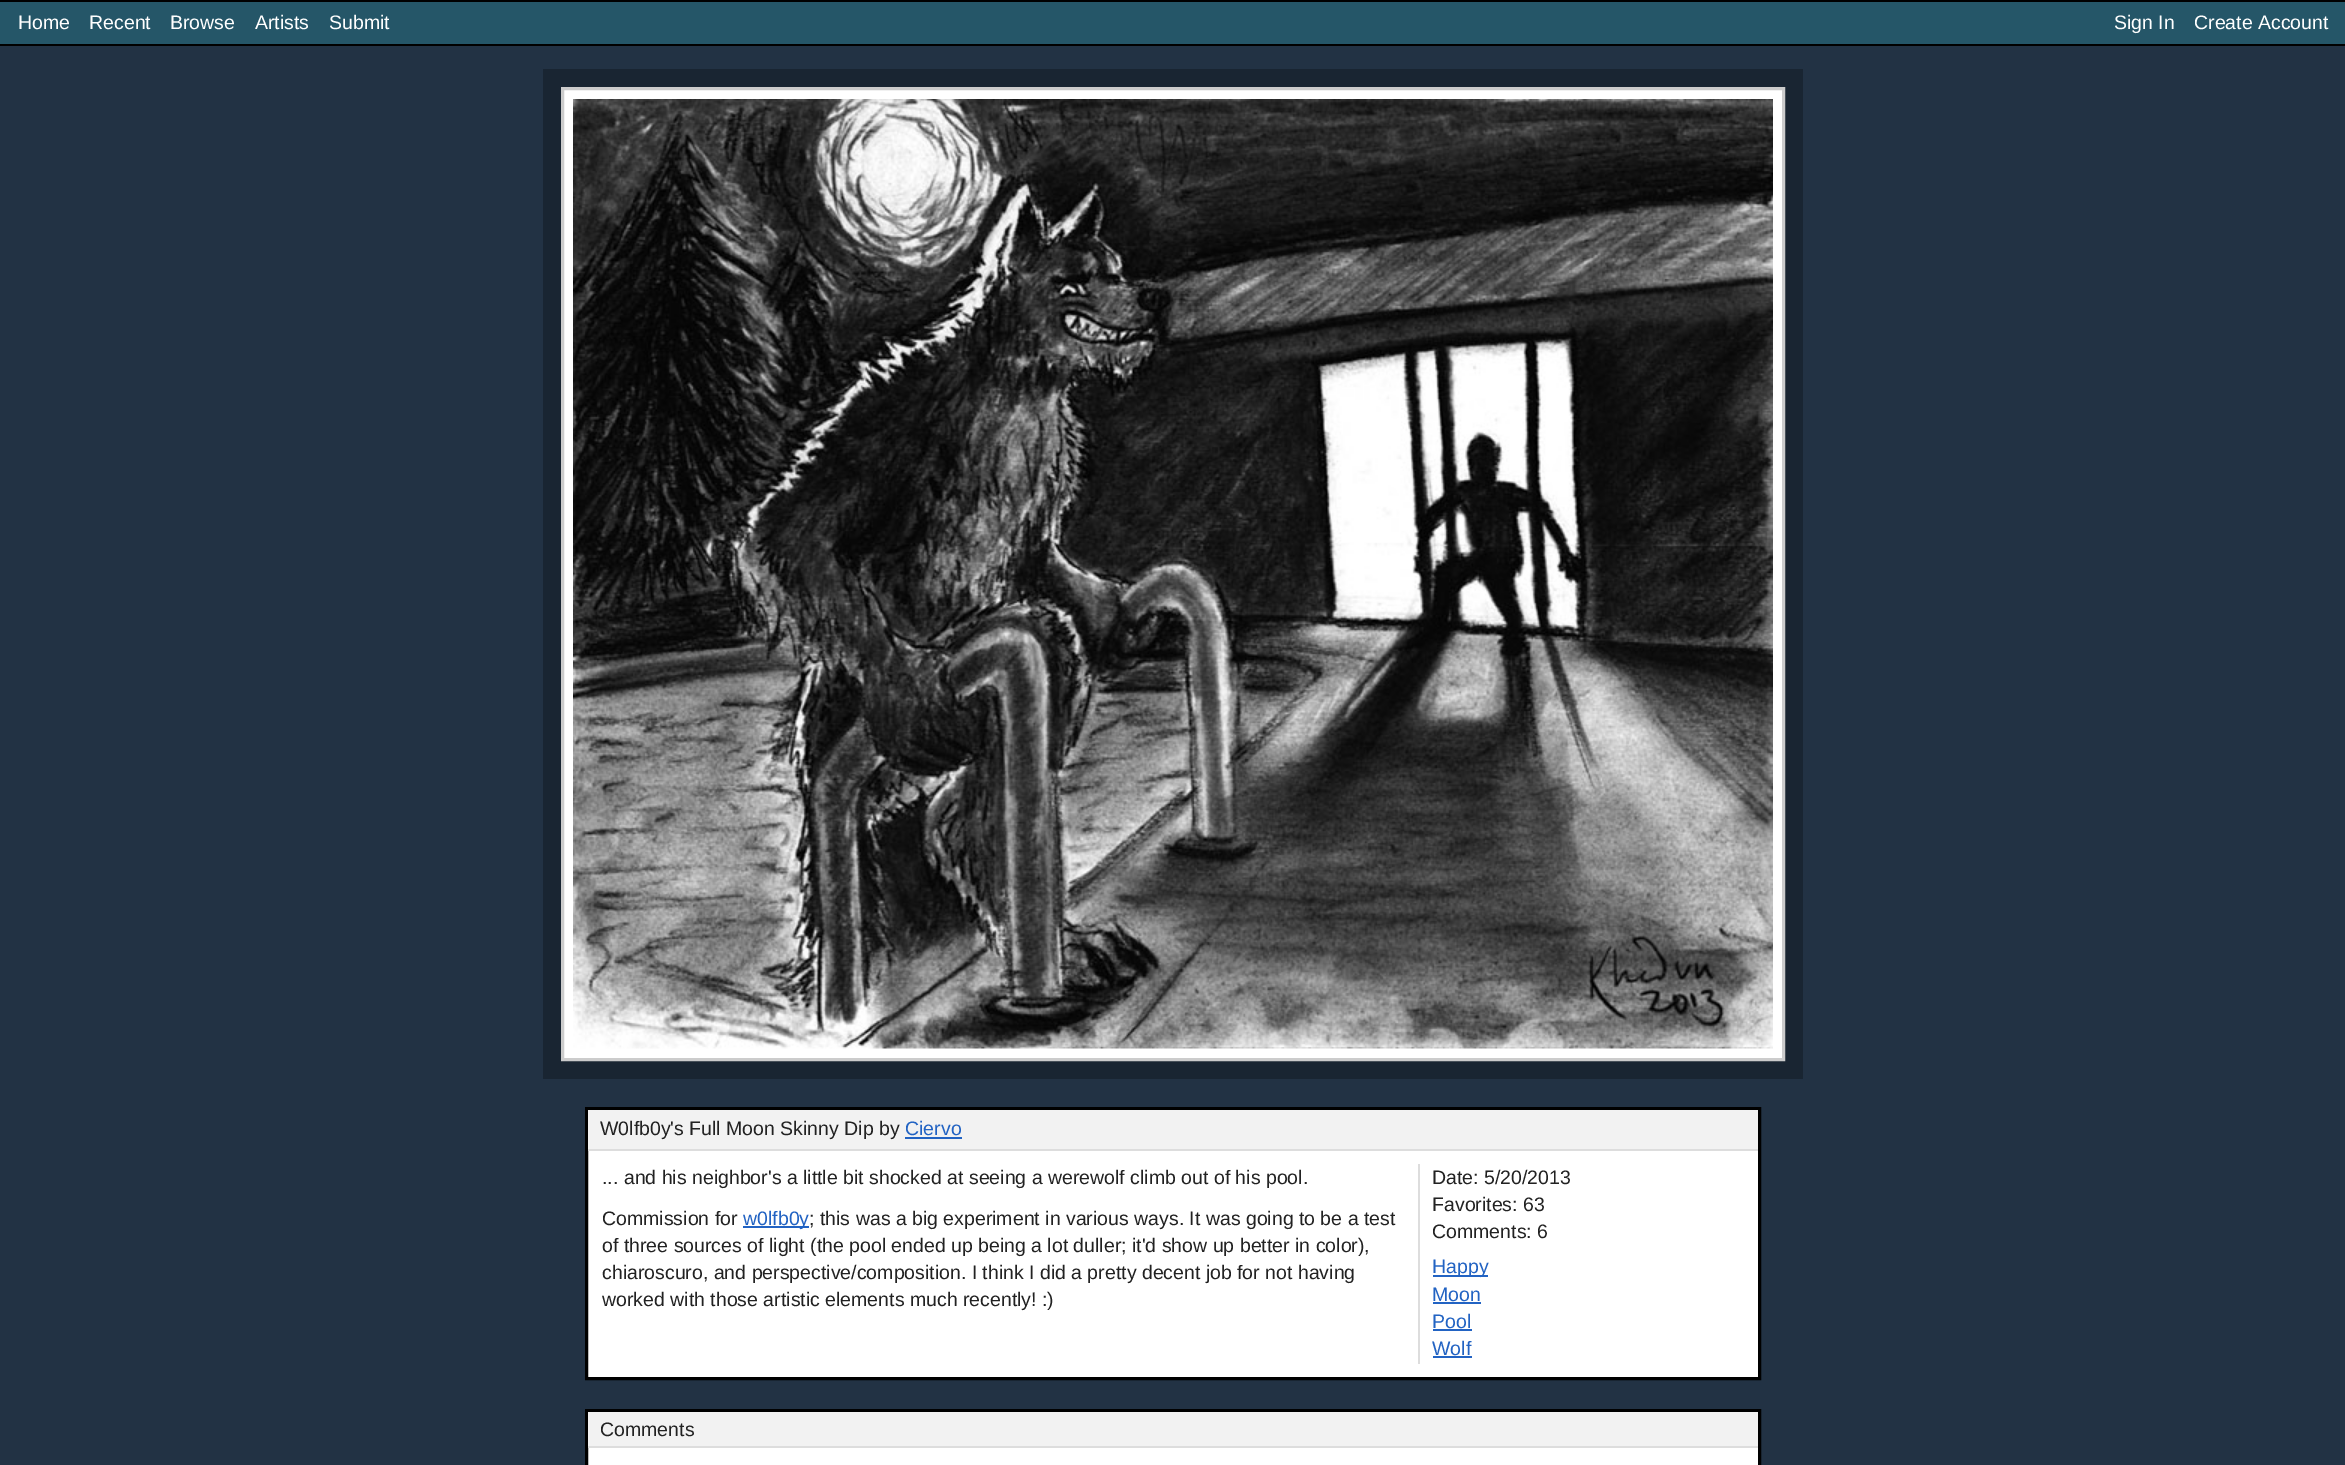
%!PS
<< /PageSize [2345 1465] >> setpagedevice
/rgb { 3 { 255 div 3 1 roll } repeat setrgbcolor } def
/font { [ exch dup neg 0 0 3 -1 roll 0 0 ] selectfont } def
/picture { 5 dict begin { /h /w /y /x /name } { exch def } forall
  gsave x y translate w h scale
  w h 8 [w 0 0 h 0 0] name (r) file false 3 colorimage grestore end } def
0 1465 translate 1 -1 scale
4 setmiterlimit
34 50 68 rgb
0 0 2345 1465 rectfill
[
  [0 2 2345 42 37 86 104]
  [0 0 2345 2 0 0 0]
  [0 44 2345 2 0 0 0]
  [543 69 1260 1010 25 37 50]
] { aload pop rgb rectfill } forall
255 255 255 rgb
562.5 88.5 moveto 1783.5 88.5 lineto 1783.5 1059.5 lineto 562.5 1059.5 lineto closepath gsave fill grestore
204 204 204 rgb
3 setlinewidth
stroke
(img/1.rgb) 573 99 1200 950 picture
255 255 255 rgb
588 1151 1170 226 rectfill
0 0 0 rgb
586.5 1108.5 1173 270 rectstroke
[
  [588 1110 1170 39 242 242 242]
  [588 1149 1170 2 221 221 221]
  [905 1137 57 2 34 99 195]
  [743 1226 66 2 34 99 195]
  [1418 1164 2 200 221 221 221]
  [1433 1275 55 2 34 99 195]
  [1433 1302 48 2 34 99 195]
  [1433 1329 39 2 34 99 195]
  [1433 1356 39 2 34 99 195]
  [588 1448 1170 17 255 255 255]
] { aload pop rgb rectfill } forall
0 0 0 rgb
586.5 1410.5 1173 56 rectstroke
242 242 242 rgb
588 1412 1170 34 rectfill
221 221 221 rgb
588 1446 1170 2 rectfill
/LiberationSans-Regular 19.5 font
255 255 255 rgb
[
  [(Home) 18 29]
  [(Recent) 89 29]
  [(Browse) 170 29]
  [(Artists) 255 29]
  [(Submit) 329 29]
  [(Sign In) 2114 29]
  [(Create Account) 2194 29]
] { aload pop moveto show } forall
34 34 34 rgb
600 1135 moveto (W0lfb0y's Full Moon Skinny Dip by) show
34 99 195 rgb
905 1135 moveto (Ciervo) show
34 34 34 rgb
602 1184 moveto (... and his neighbor's a little bit shocked at seeing a werewolf climb out of his pool.) show
602 1225 moveto (Commission for) show
34 99 195 rgb
743 1225 moveto (w0lfb0y) show
34 34 34 rgb
[
  [(; this was a big experiment in various ways. It was going to be a test) 809 1225]
  [(of three sources of light \(the pool ended up being a lot duller; it'd show up better in color\),) 602 1252]
  [(chiaroscuro, and perspective/composition. I think I did a pretty decent job for not having) 602 1279]
  [(worked with those artistic elements much recently! :\)) 602 1306]
  [(Date: 5/20/2013) 1432 1184]
  [(Favorites: 63) 1432 1211]
  [(Comments: 6) 1432 1238]
] { aload pop moveto show } forall
34 99 195 rgb
[
  [(Happy) 1432 1273]
  [(Moon) 1432 1301]
  [(Pool) 1432 1328]
  [(Wolf) 1432 1355]
] { aload pop moveto show } forall
34 34 34 rgb
600 1436 moveto (Comments) show
showpage
